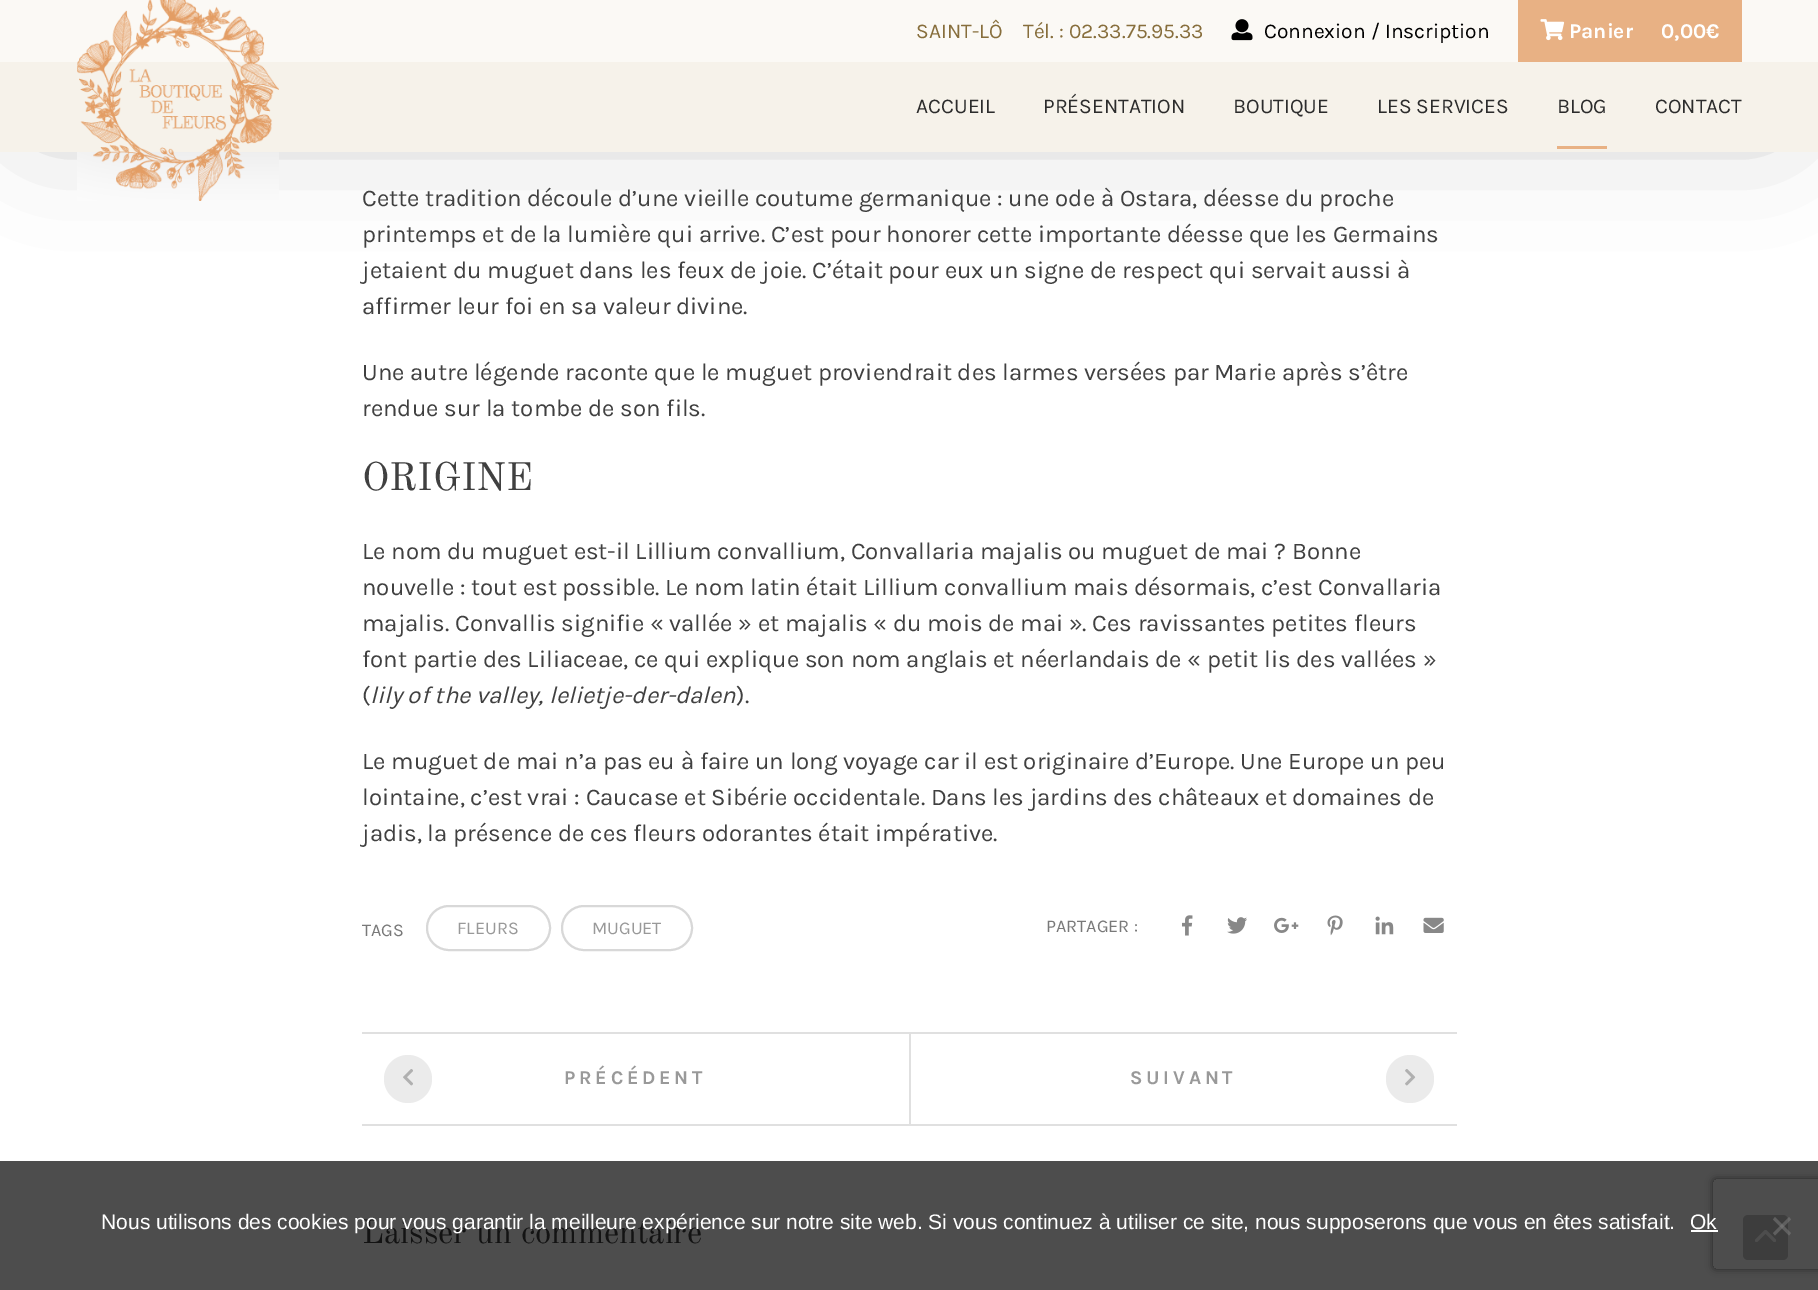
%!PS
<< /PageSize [1818 1290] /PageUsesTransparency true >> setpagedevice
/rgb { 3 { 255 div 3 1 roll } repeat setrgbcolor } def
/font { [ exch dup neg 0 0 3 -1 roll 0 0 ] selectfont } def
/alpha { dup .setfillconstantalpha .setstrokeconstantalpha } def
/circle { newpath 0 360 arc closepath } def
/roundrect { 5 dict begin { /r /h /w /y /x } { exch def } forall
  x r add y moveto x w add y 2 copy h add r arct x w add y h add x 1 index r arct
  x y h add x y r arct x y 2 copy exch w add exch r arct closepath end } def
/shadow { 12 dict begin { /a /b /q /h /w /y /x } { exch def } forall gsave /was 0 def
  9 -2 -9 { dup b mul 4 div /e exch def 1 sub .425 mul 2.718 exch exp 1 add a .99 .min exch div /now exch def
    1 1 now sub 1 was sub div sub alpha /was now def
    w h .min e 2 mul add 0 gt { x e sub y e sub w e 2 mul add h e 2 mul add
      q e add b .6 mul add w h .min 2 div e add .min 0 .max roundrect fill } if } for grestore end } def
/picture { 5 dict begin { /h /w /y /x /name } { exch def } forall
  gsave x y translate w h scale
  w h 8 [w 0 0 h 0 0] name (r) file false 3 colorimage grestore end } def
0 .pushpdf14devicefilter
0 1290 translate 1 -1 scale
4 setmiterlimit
255 255 255 rgb
0 0 1818 1290 rectfill
77 77 77 rgb
0 1161 1818 129 rectfill
0 0 0 rgb
38 44 1737 70 0 61 0.29 shadow
246 242 234 rgb
0 62 1818 90 rectfill
251 249 245 rgb
0 0 1818 62 rectfill
(img/1.rgb) 1231 19 22 22 picture
232 177 132 rgb
1518 0 224 62 rectfill
(img/2.rgb) 1540 19 25 22 picture
(img/3.rgb) 77 0 202 201 picture
1557 146 50 3 rectfill
216 216 216 rgb
2 setlinewidth
427 906 123 44 22 roundrect stroke
562 906 130 44 22 roundrect stroke
(img/4.rgb) 1182 915 11 21 picture
(img/5.rgb) 1227 917 20 17 picture
(img/6.rgb) 1274 917 25 16 picture
(img/7.rgb) 1327 915 16 21 picture
(img/8.rgb) 1375 916 19 19 picture
(img/9.rgb) 1423 917 21 16 picture
224 224 224 rgb
362 1032 1095 2 rectfill
362 1124 1095 2 rectfill
235 235 235 rgb
408 1079 24 circle fill
(img/10.rgb) 403 1069 10 17 picture
224 224 224 rgb
909 1034 2 90 rectfill
235 235 235 rgb
1410 1079 24 circle fill
(img/11.rgb) 1405 1069 11 17 picture
gsave
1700 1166 moveto 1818 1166 lineto 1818 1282 lineto 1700 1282 lineto closepath 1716 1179 moveto 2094 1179 lineto 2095.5 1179 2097 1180.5 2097 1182 curveto 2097 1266 lineto 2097 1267.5 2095.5 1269 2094 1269 curveto 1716 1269 lineto 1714.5 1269 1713 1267.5 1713 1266 curveto 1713 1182 lineto 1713 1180.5 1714.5 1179 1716 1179 curveto closepath eoclip newpath
38 38 38 rgb
1713 1179 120 90 3 4 1 shadow
grestore
255 255 255 rgb
1691 1230 27 2 rectfill
61 61 61 rgb
1743 1215 45 45 5 roundrect fill
77 77 77 rgb
3 setlinewidth
1 setlinecap
1 setlinejoin
1774.5 1240.5 moveto 1765.5 1231.5 lineto 1756.5 1240.5 lineto stroke
0.5 alpha
128 128 128 rgb
1789 1217 moveto 1791 1219.5 lineto 1775 1235.5 lineto 1773 1233 lineto closepath fill
1773 1219.5 moveto 1775 1217 lineto 1791 1233 lineto 1789 1235.5 lineto closepath fill
/Karla-Regular 21 font
1 alpha
135 110 60 rgb
916 38 moveto (SAINT-LÔ) show
1023 38 moveto (Tél. : 02.33.75.95.33) show
0 0 0 rgb
1264 38 moveto (Connexion / Inscription) show
/Karla-Bold 21 font
255 255 255 rgb
1569 38 moveto (Panier) show
1661 38 moveto (0,00€) show
/Karla-Regular 21 font
44 44 44 rgb
[
  [(ACCUEIL) 916 113]
  [(PRÉSENTATION) 1043 113]
  [(BOUTIQUE) 1233 113]
  [(LES SERVICES) 1377 113]
  [(BLOG) 1557 113]
  [(CONTACT) 1655 113]
] { aload pop moveto show } forall
/Karla-Regular 24 font
64 64 64 rgb
[
  [(Cette tradition découle d’une vieille coutume germanique : une ode à Ostara, déesse du proche) 362 206]
  [(printemps et de la lumière qui arrive. C’est pour honorer cette importante déesse que les Germains) 362 242]
  [(jetaient du muguet dans les feux de joie. C’était pour eux un signe de respect qui servait aussi à) 362 278]
  [(affirmer leur foi en sa valeur divine.) 362 314]
  [(Une autre légende raconte que le muguet proviendrait des larmes versées par Marie après s’être) 362 380]
  [(rendue sur la tombe de son fils.) 362 416]
] { aload pop moveto show } forall
/OldStandardTT-Regular 39 font
362 490 moveto (ORIGINE) show
/Karla-Regular 24 font
[
  [(Le nom du muguet est-il Lillium convallium, Convallaria majalis ou muguet de mai ? Bonne) 362 559]
  [(nouvelle : tout est possible. Le nom latin était Lillium convallium mais désormais, c’est Convallaria) 362 595]
  [(majalis. Convallis signifie « vallée » et majalis « du mois de mai ». Ces ravissantes petites fleurs) 362 631]
  [(font partie des Liliaceae, ce qui explique son nom anglais et néerlandais de « petit lis des vallées ») 362 667]
  [(\() 362 703]
] { aload pop moveto show } forall
/Karla-Italic 24 font
370 703 moveto (lily of the valley, lelietje-der-dalen) show
/Karla-Regular 24 font
[
  [(\).) 736 703]
  [(Le muguet de mai n’a pas eu à faire un long voyage car il est originaire d’Europe. Une Europe un peu) 362 769]
  [(lointaine, c’est vrai : Caucase et Sibérie occidentale. Dans les jardins des châteaux et domaines de) 362 805]
  [(jadis, la présence de ces fleurs odorantes était impérative.) 362 841]
] { aload pop moveto show } forall
/Karla-Regular 18 font
121 121 121 rgb
362 936 moveto (TAGS) show
153 153 153 rgb
457 934 moveto (FLEURS) show
592 934 moveto (MUGUET) show
121 121 121 rgb
1046 932 moveto (PARTAGER :) show
/Karla-Bold 19.5 font
153 153 153 rgb
564 1084 moveto 3.75 0 (PRÉCÉDENT) ashow
1130 1084 moveto 3.75 0 (SUIVANT) ashow
/OldStandardTT-Regular 33 font
19 19 19 rgb
362 1243 moveto (Laisser un commentaire) show
/LiberationSans-Regular 21 font
255 255 255 rgb
101 1229 moveto (Nous utilisons des cookies pour vous garantir la meilleure expérience sur notre site web. Si vous continuez à utiliser ce site, nous supposerons que vous en êtes satisfait.) show
1690 1229 moveto (Ok) show
.poppdf14devicefilter showpage
